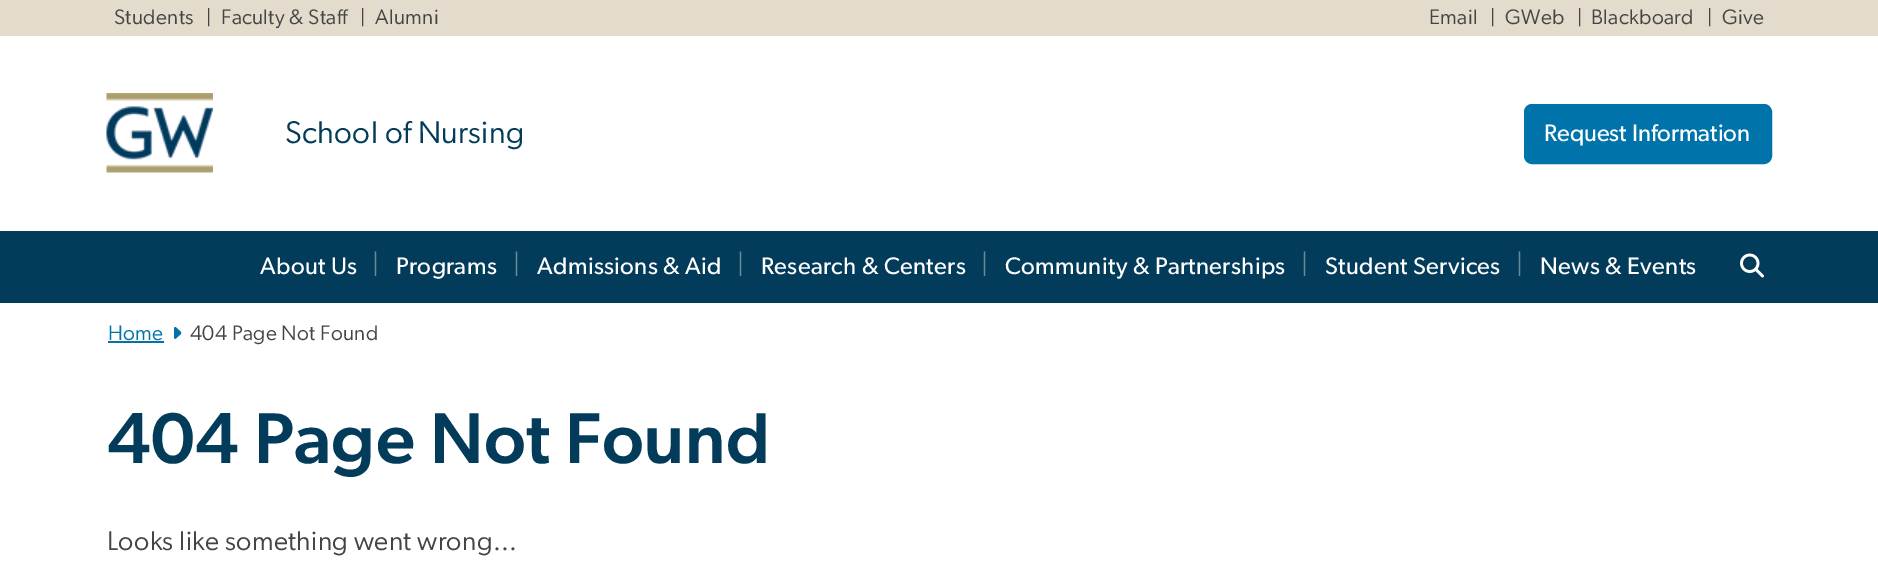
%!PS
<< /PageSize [1878 561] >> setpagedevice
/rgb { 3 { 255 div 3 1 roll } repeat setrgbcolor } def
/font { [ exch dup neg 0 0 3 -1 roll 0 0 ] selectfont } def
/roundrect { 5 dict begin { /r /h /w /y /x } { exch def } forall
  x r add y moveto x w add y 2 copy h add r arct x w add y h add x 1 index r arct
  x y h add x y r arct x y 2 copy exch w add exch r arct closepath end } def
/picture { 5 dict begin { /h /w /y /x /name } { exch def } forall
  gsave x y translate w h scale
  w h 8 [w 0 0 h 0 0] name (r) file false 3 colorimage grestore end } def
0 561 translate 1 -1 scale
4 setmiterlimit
255 255 255 rgb
0 0 1878 561 rectfill
227 220 204 rgb
0 0 1878 36 rectfill
(img/1.rgb) 106 93 107 80 picture
0 115 170 rgb
1525.5 105.5 245 57 6.5 roundrect gsave fill grestore
3 setlinewidth
stroke
3 60 90 rgb
0 231 1878 72 rectfill
(img/2.rgb) 1740 253 24 25 picture
0 115 170 rgb
108 341 56 2 rectfill
(img/3.rgb) 174 327 8 12 picture
/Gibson-Regular 21 font
68 68 68 rgb
114 24 moveto 0.35 0 (Students) ashow
/Gibson-Regular 20 font
206 24 moveto 0.35 0 (|) ashow
/Gibson-Regular 21 font
221 24 moveto 0.35 0 (Faculty & Staff) ashow
/Gibson-Regular 20 font
360 24 moveto 0.35 0 (|) ashow
/Gibson-Regular 21 font
375 24 moveto 0.35 0 (Alumni) ashow
1429 24 moveto 0.35 0 (Email) ashow
/Gibson-Regular 20 font
1490 24 moveto 0.35 0 (|) ashow
/Gibson-Regular 21 font
1505 24 moveto 0.35 0 (GWeb) ashow
/Gibson-Regular 20 font
1577 24 moveto 0.35 0 (|) ashow
/Gibson-Regular 21 font
1591 24 moveto 0.35 0 (Blackboard) ashow
/Gibson-Regular 20 font
1707 24 moveto 0.35 0 (|) ashow
/Gibson-Regular 21 font
1722 24 moveto 0.35 0 (Give) ashow
/Gibson-Regular 31.5 font
3 60 90 rgb
285 143 moveto 0.35 0 (School of Nursing) ashow
/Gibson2-Regular 24 font
255 255 255 rgb
1544 141 moveto (Request Information) show
260 274 moveto 0.35 0 (About Us) ashow
/Gibson-Regular 27 font
104 138 156 rgb
372 273 moveto 0.35 0 (|) ashow
/Gibson2-Regular 24 font
255 255 255 rgb
396 274 moveto 0.35 0 (Programs) ashow
/Gibson-Regular 27 font
104 138 156 rgb
513 273 moveto 0.35 0 (|) ashow
/Gibson2-Regular 24 font
255 255 255 rgb
537 274 moveto 0.35 0 (Admissions & Aid) ashow
/Gibson-Regular 27 font
104 138 156 rgb
737 273 moveto 0.35 0 (|) ashow
/Gibson2-Regular 24 font
255 255 255 rgb
761 274 moveto 0.35 0 (Research & Centers) ashow
/Gibson-Regular 27 font
104 138 156 rgb
981 273 moveto 0.35 0 (|) ashow
/Gibson2-Regular 24 font
255 255 255 rgb
1005 274 moveto 0.35 0 (Community & Partnerships) ashow
/Gibson-Regular 27 font
104 138 156 rgb
1301 273 moveto 0.35 0 (|) ashow
/Gibson2-Regular 24 font
255 255 255 rgb
1325 274 moveto 0.35 0 (Student Services) ashow
/Gibson-Regular 27 font
104 138 156 rgb
1516 273 moveto 0.35 0 (|) ashow
/Gibson2-Regular 24 font
255 255 255 rgb
1540 274 moveto 0.35 0 (News & Events) ashow
/Gibson-Regular 21 font
0 115 170 rgb
108 340 moveto 0.35 0 (Home) ashow
68 68 68 rgb
190 340 moveto 0.35 0 (404 Page Not Found) ashow
/Gibson-Medium 72 font
3 60 90 rgb
107 463 moveto 0.35 0 (404 Page Not Found) ashow
/Gibson-Regular 27 font
68 68 68 rgb
107 550 moveto 0.35 0 (Looks like something went wrong...) ashow
showpage
